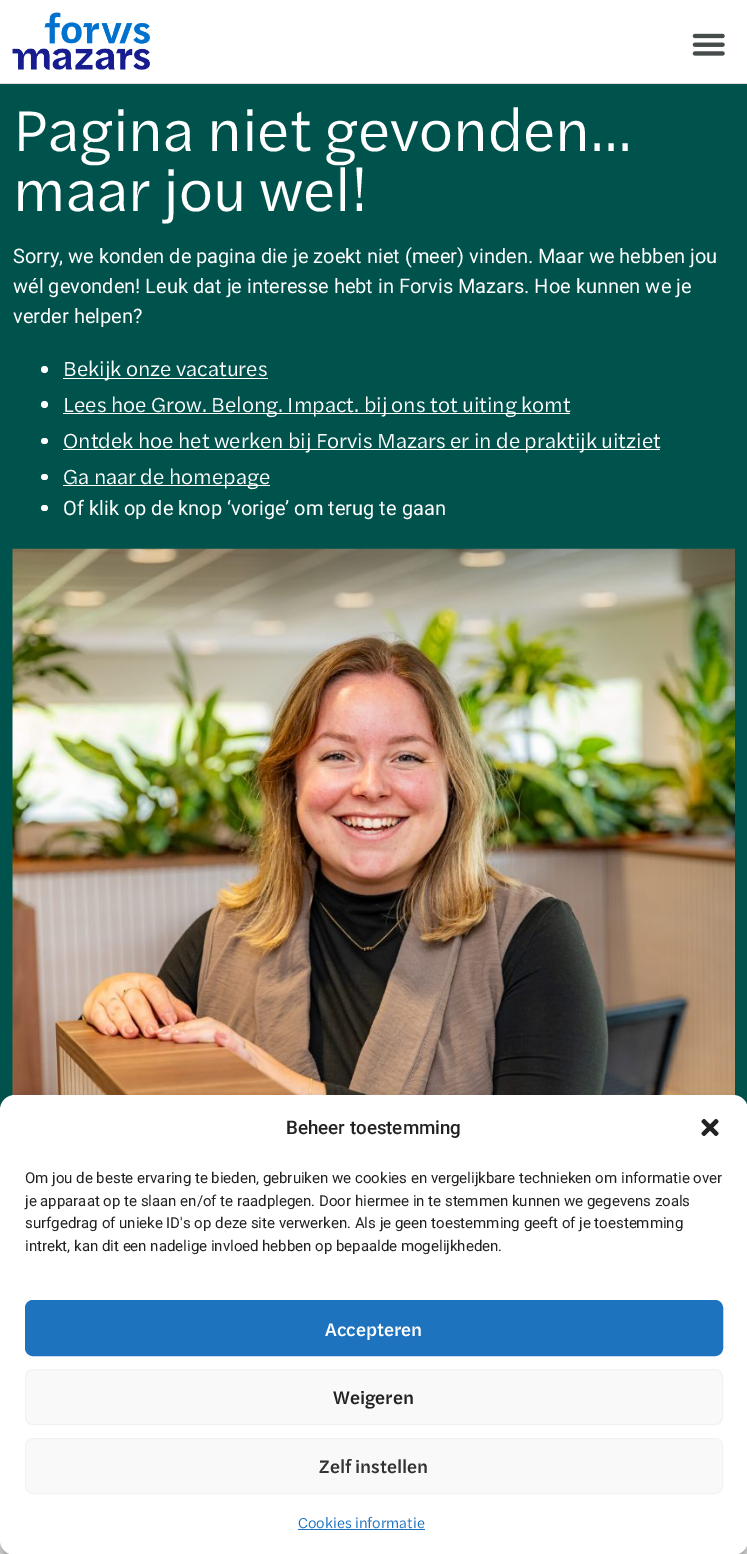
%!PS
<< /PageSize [747 1554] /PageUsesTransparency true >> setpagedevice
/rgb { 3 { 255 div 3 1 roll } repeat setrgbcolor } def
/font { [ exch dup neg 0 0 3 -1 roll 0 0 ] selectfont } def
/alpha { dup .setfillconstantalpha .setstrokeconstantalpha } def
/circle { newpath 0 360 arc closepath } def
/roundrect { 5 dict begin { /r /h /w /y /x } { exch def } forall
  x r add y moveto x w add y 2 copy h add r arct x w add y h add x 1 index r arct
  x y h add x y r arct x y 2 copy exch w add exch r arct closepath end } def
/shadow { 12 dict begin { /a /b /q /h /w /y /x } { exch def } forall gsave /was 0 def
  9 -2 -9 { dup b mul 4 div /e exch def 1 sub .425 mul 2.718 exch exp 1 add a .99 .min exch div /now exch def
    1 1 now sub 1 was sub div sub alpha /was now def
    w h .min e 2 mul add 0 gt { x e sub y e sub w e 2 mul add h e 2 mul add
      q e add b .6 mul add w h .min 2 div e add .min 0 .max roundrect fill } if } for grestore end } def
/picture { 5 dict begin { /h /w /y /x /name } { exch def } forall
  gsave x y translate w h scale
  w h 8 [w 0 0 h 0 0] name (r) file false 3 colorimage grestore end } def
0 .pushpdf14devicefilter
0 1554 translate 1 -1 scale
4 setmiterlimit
255 255 255 rgb
0 0 747 1554 rectfill
222 222 222 rgb
0 83 747 1 rectfill
(img/1.rgb) 12 12 138 58 picture
(img/2.rgb) 692 33 33 23 picture
0 83 76 rgb
0 84 747 1026 rectfill
255 255 255 rgb
44.5 369.5 3.5 circle fill
63 378 205 1 rectfill
44.5 404.5 3.5 circle fill
63 413 507 1 rectfill
41 438 7 6 3 roundrect fill
63 449 597 1 rectfill
41 474 7 6 3 roundrect fill
63 485 207 1 rectfill
41 505 7 6 3 roundrect fill
(img/3.rgb) 12 548 723 548 picture
244 244 244 rgb
0 1540 747 14 rectfill
0 0 0 rgb
0 1103 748 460 15 4 0.23 shadow
0 1108 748 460 15 12.5 0.19 shadow
255 255 255 rgb
0 1095 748 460 15 roundrect fill
(img/4.rgb) 701 1118 18 18 picture
30 115 190 rgb
25.5 1300.5 697 55 7.5 roundrect gsave fill grestore
stroke
249 249 249 rgb
25.5 1369.5 697 55 7.5 roundrect gsave fill grestore
242 242 242 rgb
stroke
249 249 249 rgb
25.5 1438.5 697 55 7.5 roundrect gsave fill grestore
242 242 242 rgb
stroke
30 115 190 rgb
298 1529 127 1 rectfill
/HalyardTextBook-Regular 60 font
255 255 255 rgb
13 151 moveto (Pagina niet gevonden...) show
13 211 moveto (maar jou wel!) show
/Roboto-Regular 20 font
[
  [(Sorry, we konden de pagina die je zoekt niet \(meer\) vinden. Maar we hebben jou) 13 263]
  [(wél gevonden! Leuk dat je interesse hebt in Forvis Mazars. Hoe kunnen we je) 13 293]
  [(verder helpen?) 13 323]
] { aload pop moveto show } forall
/HalyardTextBook-Regular 21.25 font
[
  [(Bekijk onze vacatures) 63 376]
  [(Lees hoe Grow. Belong. Impact. bij ons tot uiting komt) 63 412]
  [(Ontdek hoe het werken bij Forvis Mazars er in de praktijk uitziet) 63 448]
  [(Ga naar de homepage) 63 484]
] { aload pop moveto show } forall
/Roboto-Regular 20 font
63 515 moveto (Of klik op de knop ‘vorige’ om terug te gaan) show
/Roboto-Medium 18.75 font
34 34 34 rgb
286 1134 moveto (Beheer toestemming) show
/Roboto-Regular 15 font
[
  [(Om jou de beste ervaring te bieden, gebruiken we cookies en vergelijkbare technieken om informatie over) 25 1183]
  [(je apparaat op te slaan en/of te raadplegen. Door hiermee in te stemmen kunnen we gegevens zoals) 25 1206]
  [(surfgedrag of unieke ID's op deze site verwerken. Als je geen toestemming geeft of je toestemming) 25 1228]
  [(intrekt, kan dit een nadelige invloed hebben op bepaalde mogelijkheden.) 25 1251]
] { aload pop moveto show } forall
/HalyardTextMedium-Medium 18.75 font
255 255 255 rgb
325 1336 moveto (Accepteren) show
34 34 34 rgb
333 1404 moveto (Weigeren) show
51 51 51 rgb
319 1473 moveto (Zelf instellen) show
/HalyardTextBook-Regular 15 font
30 115 190 rgb
298 1528 moveto (Cookies informatie) show
.poppdf14devicefilter showpage
